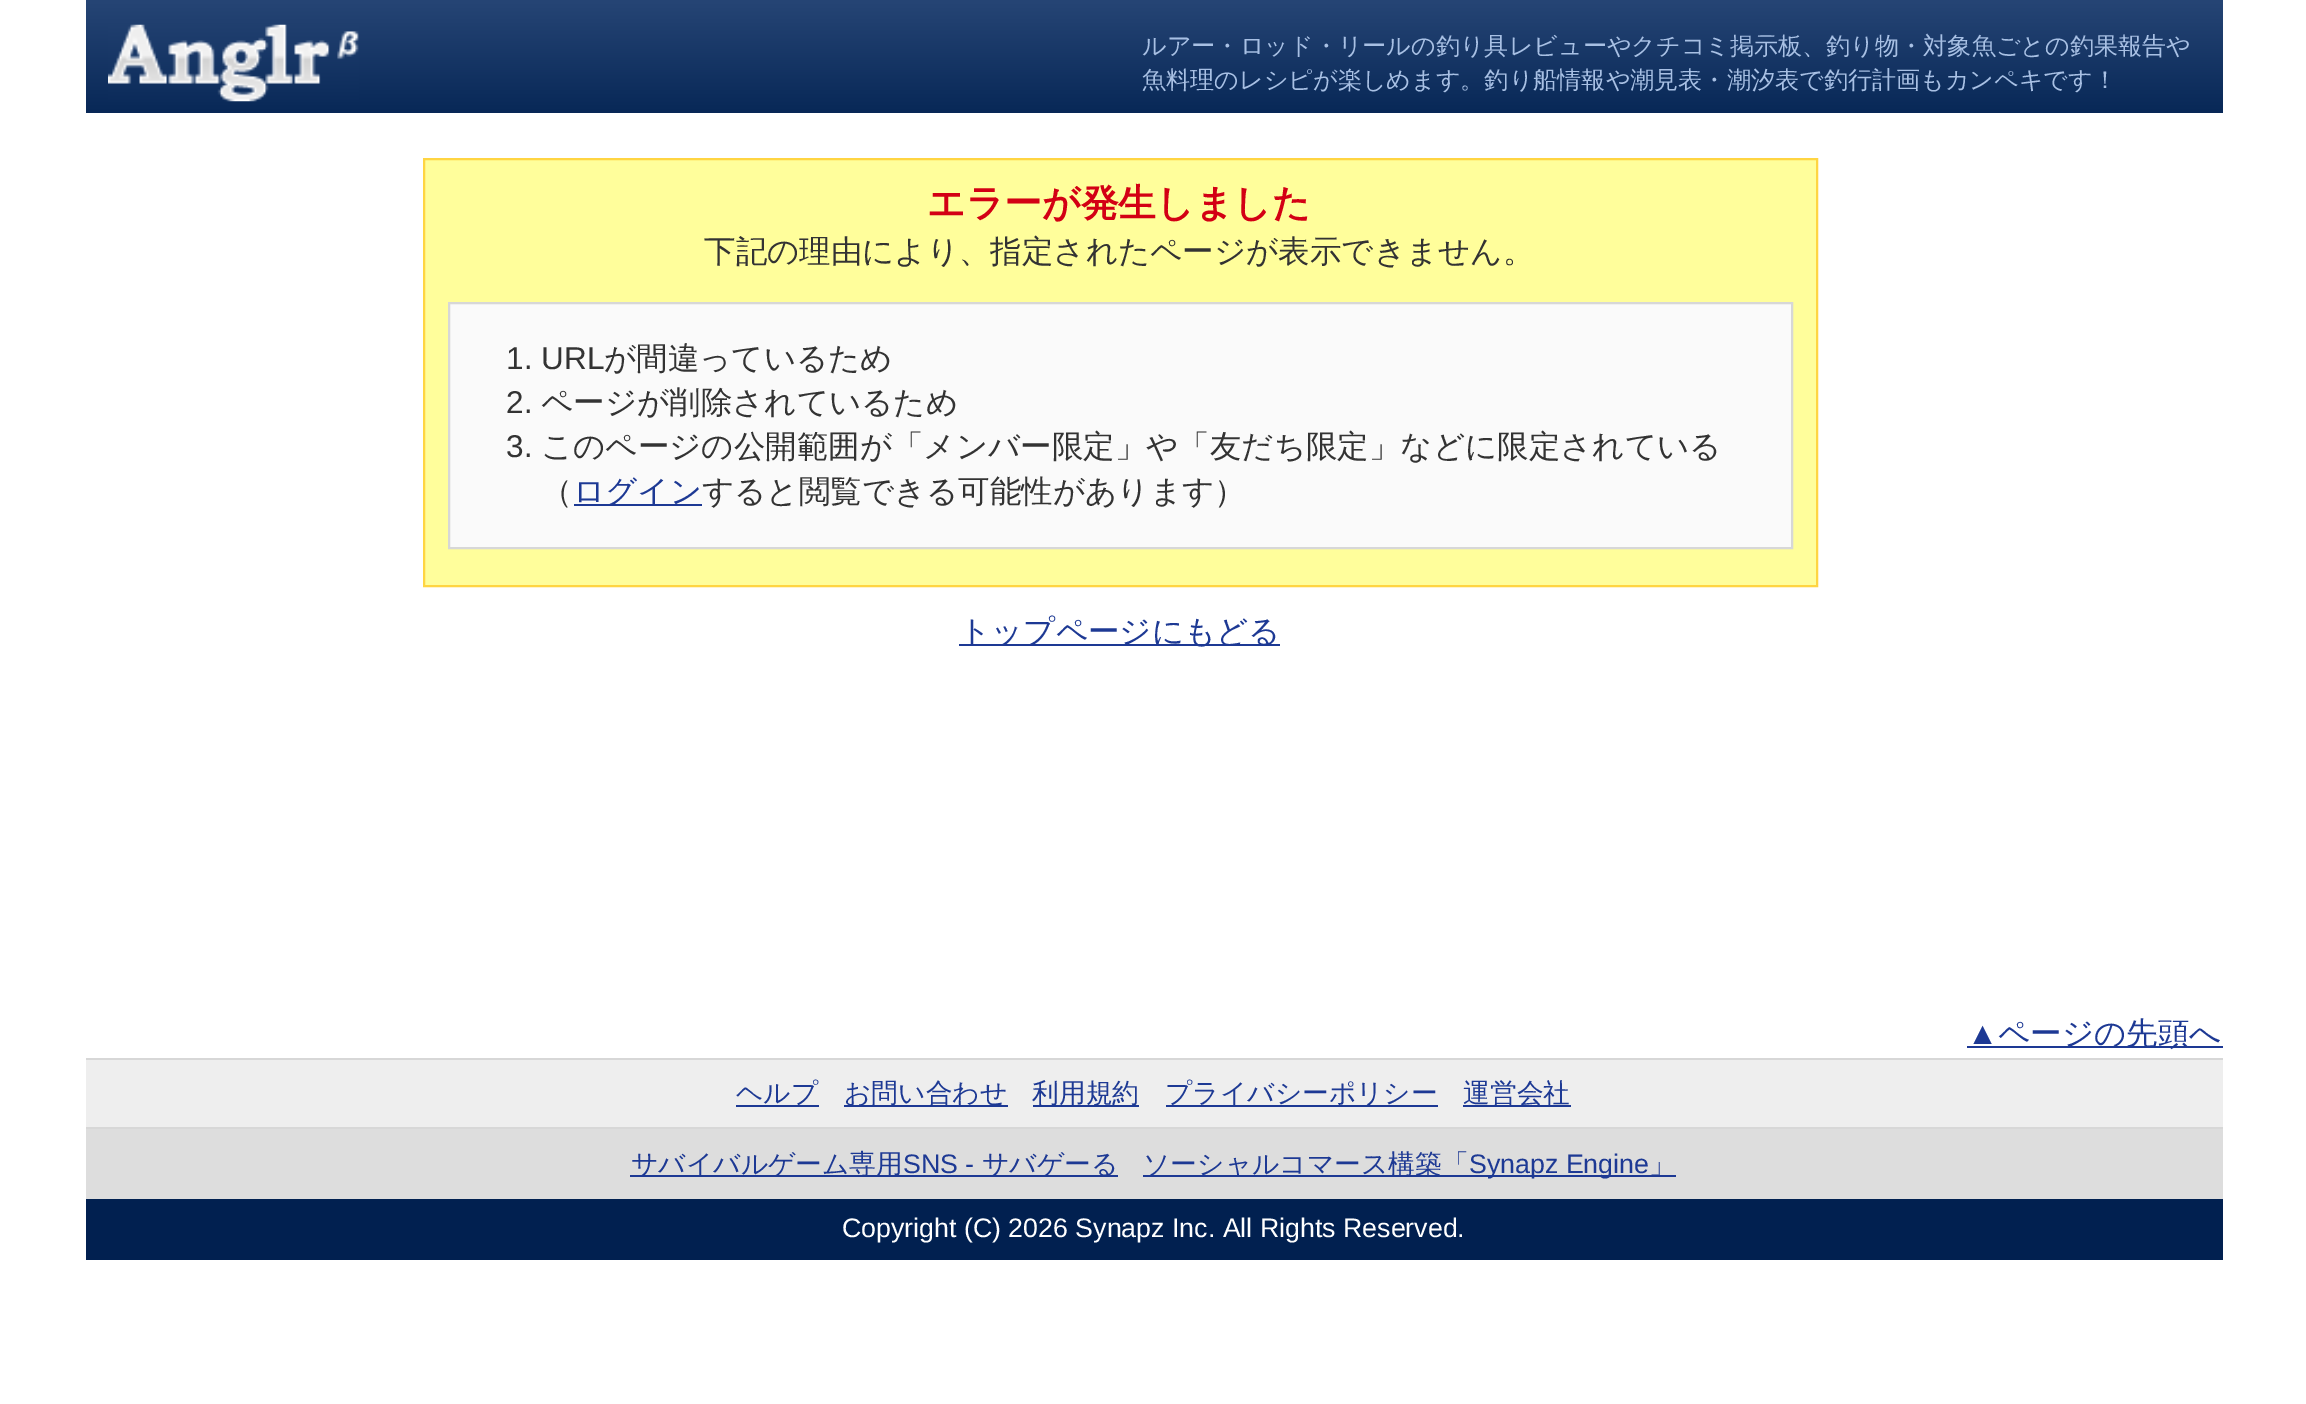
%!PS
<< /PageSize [2306 1404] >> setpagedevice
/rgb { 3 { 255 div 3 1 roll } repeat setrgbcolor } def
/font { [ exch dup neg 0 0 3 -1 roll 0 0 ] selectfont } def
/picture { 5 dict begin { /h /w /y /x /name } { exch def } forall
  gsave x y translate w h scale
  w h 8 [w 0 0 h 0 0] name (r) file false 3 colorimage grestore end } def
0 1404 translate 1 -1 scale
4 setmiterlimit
255 255 255 rgb
0 0 2306 1404 rectfill
gsave 86 0 moveto 2223 0 lineto 2223 113 lineto 86 113 lineto closepath clip newpath
<< /ShadingType 2 /ColorSpace /DeviceRGB /Coords [1154 0 1154 113] /Extend [true true] /Function << /FunctionType 2 /Domain [0 1] /C0 [0.149 0.271 0.459] /C1 [0.031 0.157 0.341] /N 1 >> >> shfill grestore
(img/1.rgb) 108 24 251 78 picture
255 254 155 rgb
424 159 moveto 1817 159 lineto 1817 586 lineto 424 586 lineto closepath gsave fill grestore
255 213 66 rgb
2 setlinewidth
stroke
250 250 250 rgb
449 303 moveto 1792 303 lineto 1792 548 lineto 449 548 lineto closepath gsave fill grestore
215 215 215 rgb
stroke
[
  [574 504 128 2 29 57 148]
  [959 644 321 2 29 57 148]
  [1967 1046 256 2 29 57 148]
  [86 1060 2137 67 238 238 238]
  [86 1058 2137 2 215 215 215]
  [736 1105 83 2 29 57 148]
  [844 1105 164 2 29 57 148]
  [1033 1105 106 2 29 57 148]
  [1166 1105 272 2 29 57 148]
  [1463 1105 108 2 29 57 148]
  [86 1129 2137 70 221 221 221]
  [86 1127 2137 2 215 215 215]
  [630 1175 488 2 29 57 148]
  [1143 1175 533 2 29 57 148]
  [86 1199 2137 61 1 32 80]
] { aload pop rgb rectfill } forall
/WenQuanYiZenHei-Medium 24.1 font
168 192 228 rgb
1142 54 moveto (ルアー・ロッド・リールの釣り具レビューやクチコミ掲示板、釣り物・対象魚ごとの釣果報告や) show
1142 88 moveto (魚料理のレシピが楽しめます。釣り船情報や潮見表・潮汐表で釣行計画もカンペキです！) show
/WenQuanYiZenHei-Bold 37.75 font
211 0 20 rgb
927 216 moveto (エラーが発生しました) show
/WenQuanYiZenHei-Medium 31.5 font
51 51 51 rgb
704 262 moveto (下記の理由により、指定されたページが表示できません。) show
/LiberationSans-Regular 31.5 font
506 369 moveto (1. URL) show
/WenQuanYiZenHei-Medium 31.5 font
604 369 moveto (が間違っているため) show
/LiberationSans-Regular 31.5 font
506 413 moveto (2.) show
/WenQuanYiZenHei-Medium 31.5 font
541 413 moveto (ページが削除されているため) show
/LiberationSans-Regular 31.5 font
506 457 moveto (3.) show
/WenQuanYiZenHei-Medium 31.5 font
541 457 moveto (このページの公開範囲が「メンバー限定」や「友だち限定」などに限定されている) show
541 502 moveto (（) show
29 57 148 rgb
573 502 moveto (ログイン) show
51 51 51 rgb
702 502 moveto (すると閲覧できる可能性があります）) show
29 57 148 rgb
959 642 moveto (トップページにもどる) show
/LiberationSans-Regular 31.5 font
1967 1044 moveto (▲) show
/WenQuanYiZenHei-Medium 31.5 font
1998 1044 moveto (ページの先頭へ) show
/WenQuanYiZenHei-Medium 26.75 font
[
  [(ヘルプ) 736 1102]
  [(お問い合わせ) 844 1102]
  [(利用規約) 1032 1102]
  [(プライバシーポリシー) 1165 1102]
  [(運営会社) 1463 1102]
  [(サバイバルゲーム専用) 631 1173]
] { aload pop moveto show } forall
/LiberationSans-Regular 26.75 font
903 1173 moveto (SNS -) show
/WenQuanYiZenHei-Medium 26.75 font
982 1173 moveto (サバゲーる) show
1143 1173 moveto (ソーシャルコマース構築「) show
/LiberationSans-Regular 26.75 font
1469 1173 moveto (Synapz Engine) show
/WenQuanYiZenHei-Medium 26.75 font
1649 1173 moveto (」) show
/LiberationSans-Regular 26.75 font
255 255 255 rgb
842 1237 moveto (Copyright \(C\) 2026 Synapz Inc. All Rights Reserved.) show
showpage
